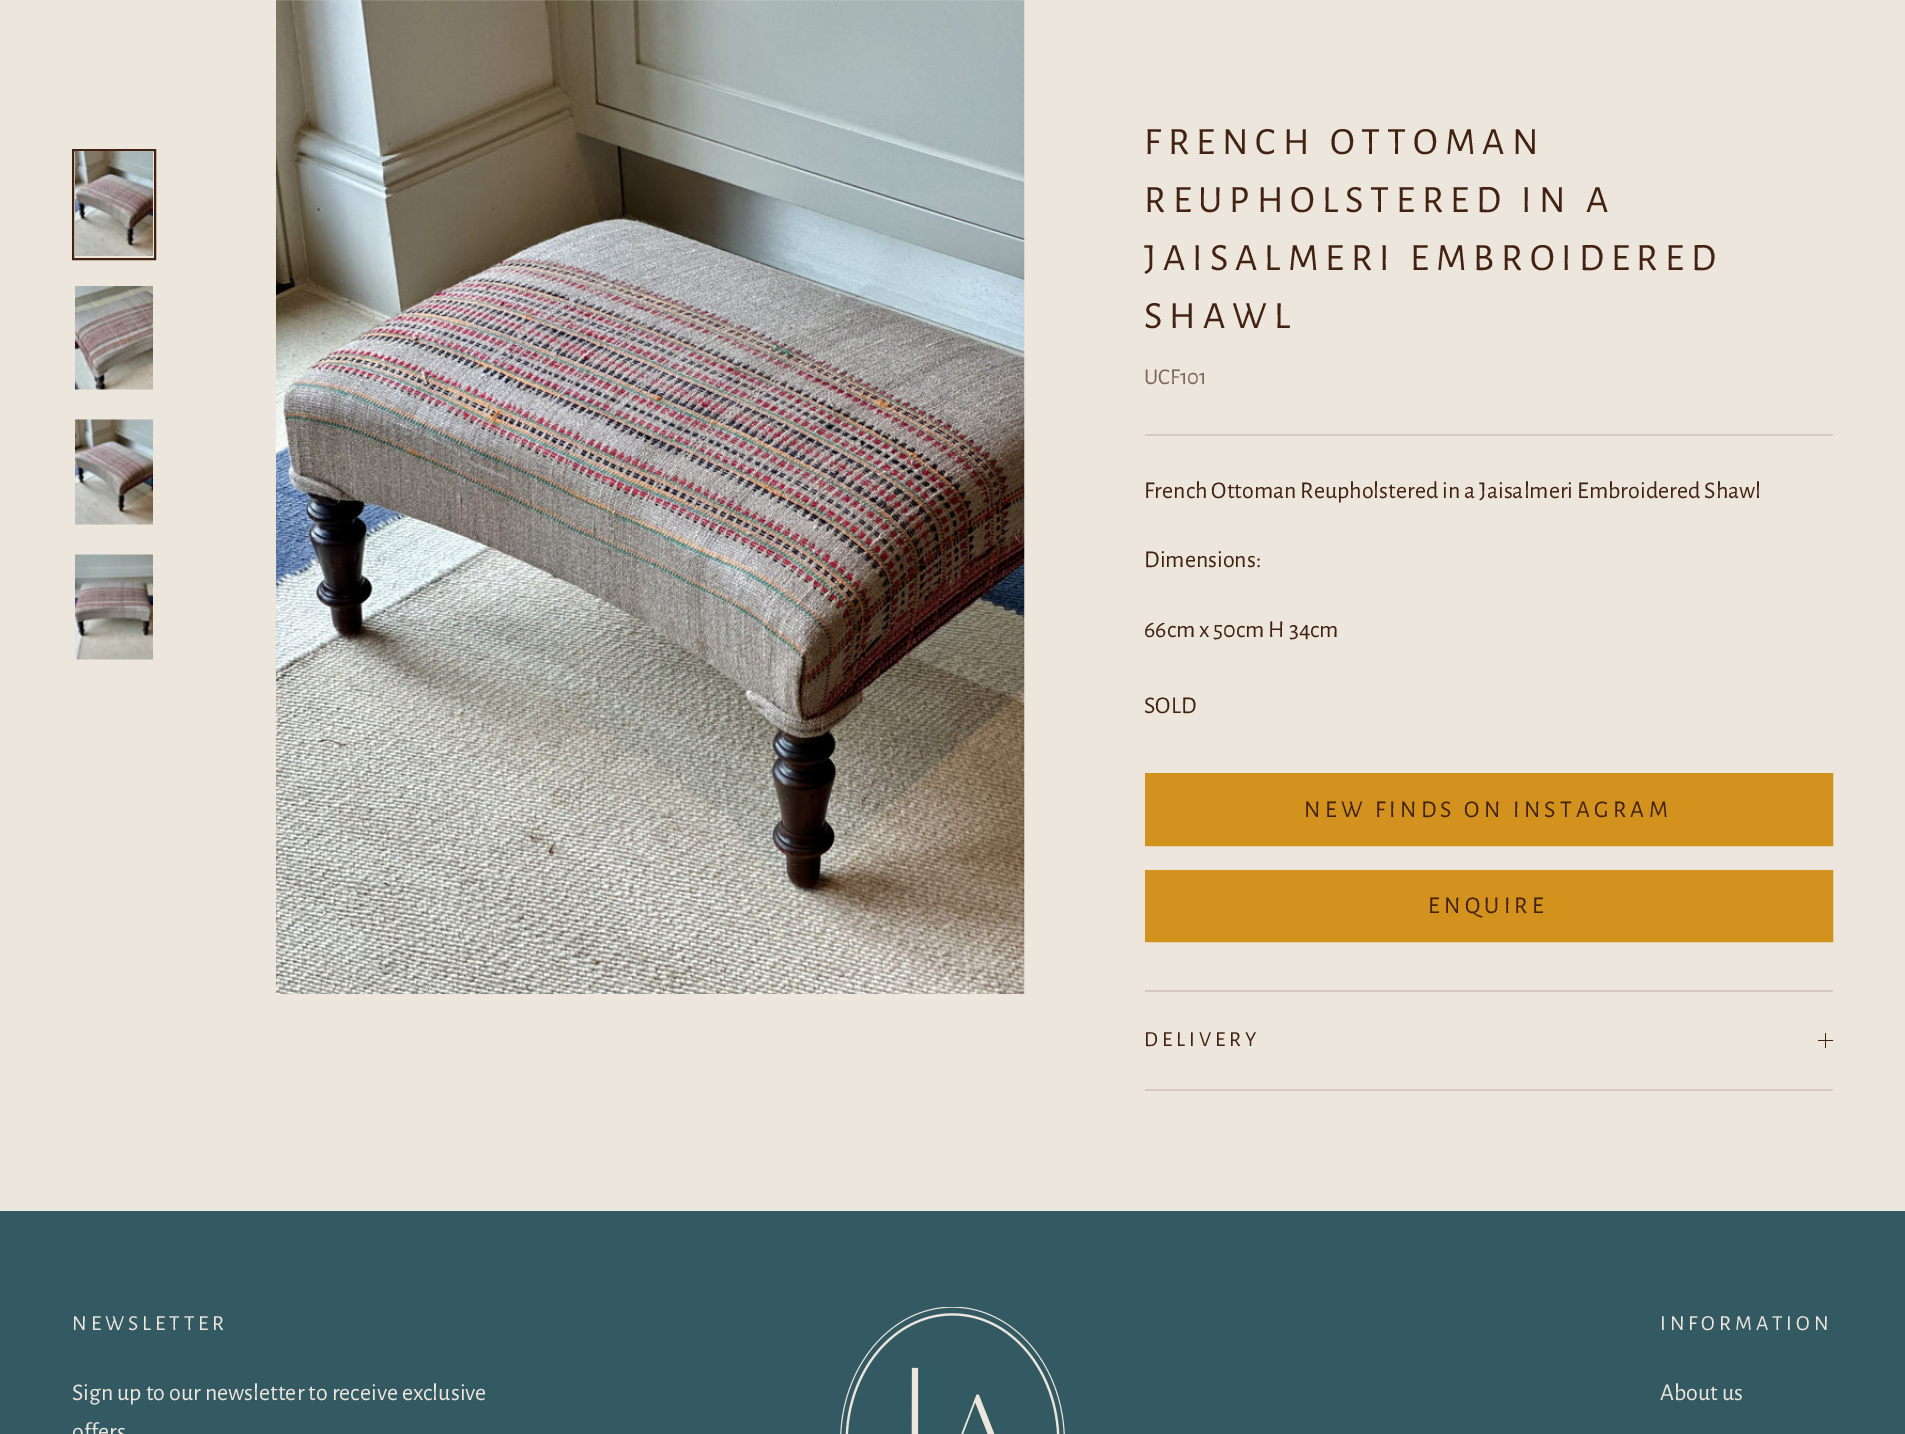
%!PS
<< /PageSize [1905 1434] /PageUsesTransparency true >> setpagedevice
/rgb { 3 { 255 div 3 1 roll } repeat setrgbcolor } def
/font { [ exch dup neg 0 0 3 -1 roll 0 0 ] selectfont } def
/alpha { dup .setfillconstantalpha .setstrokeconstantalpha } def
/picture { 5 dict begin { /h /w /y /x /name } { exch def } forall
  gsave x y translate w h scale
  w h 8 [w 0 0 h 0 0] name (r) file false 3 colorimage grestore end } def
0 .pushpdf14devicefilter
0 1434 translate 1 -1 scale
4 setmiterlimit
236 230 221 rgb
0 0 1905 1434 rectfill
(img/5.rgb) 276 0 749 994 picture
0.15 alpha
276 0 749 1 rectfill
1 alpha
67 34 18 rgb
2 setlinewidth
73 150 82 109 rectstroke
(img/1.rgb) 75 151 78 105 picture
(img/2.rgb) 75 286 78 104 picture
(img/3.rgb) 75 419 78 106 picture
(img/4.rgb) 75 554 78 106 picture
211 201 191 rgb
1145 434 688 2 rectfill
210 146 29 rgb
1146 774 moveto 1832 774 lineto 1832 845 lineto 1146 845 lineto closepath gsave fill grestore
stroke
1146 871 moveto 1832 871 lineto 1832 941 lineto 1146 941 lineto closepath gsave fill grestore
stroke
[
  [1145 990 688 2 211 201 191]
  [1145 1089 688 2 211 201 191]
  [1825 1033 1 15 67 34 18]
  [1818 1040 15 1 67 34 18]
  [0 1211 1905 223 51 89 99]
] { aload pop rgb rectfill } forall
(img/6.rgb) 840 1307 225 127 picture
/AlegreyaSans-Regular 38.75 font
67 34 18 rgb
1144 154 moveto 7 0 (FRENCH OTTOMAN) ashow
1144 212 moveto 7 0 (REUPHOLSTERED IN A) ashow
1144 270 moveto 7 0 (JAISALMERI EMBROIDERED) ashow
1144 328 moveto 7 0 (SHAWL) ashow
/AlegreyaSans-Regular 22.5 font
126 103 89 rgb
1144 384 moveto (UCF101) show
/AlegreyaSans-Regular 24 font
67 34 18 rgb
[
  [(French Ottoman Reupholstered in a Jaisalmeri Embroidered Shawl) 1144 498]
  [(Dimensions:) 1144 567]
  [(66cm x 50cm H 34cm) 1144 637]
  [(SOLD) 1144 713]
] { aload pop moveto show } forall
1304 817 moveto 4.3 0 (NEW FINDS ON INSTAGRAM) ashow
1428 913 moveto 4.3 0 (ENQUIRE) ashow
/AlegreyaSans-Regular 21.5 font
1144 1046 moveto 3.9 0 (DELIVERY) ashow
236 230 221 rgb
72 1330 moveto 3.9 0 (NEWSLETTER) ashow
/AlegreyaSans-Regular 24 font
72 1400 moveto (Sign up to our newsletter to receive exclusive) show
72 1439 moveto (offers) show
/AlegreyaSans-Regular 21.5 font
1660 1330 moveto 3.9 0 (INFORMATION) ashow
/AlegreyaSans-Regular 24 font
1660 1400 moveto (About us) show
.poppdf14devicefilter showpage
